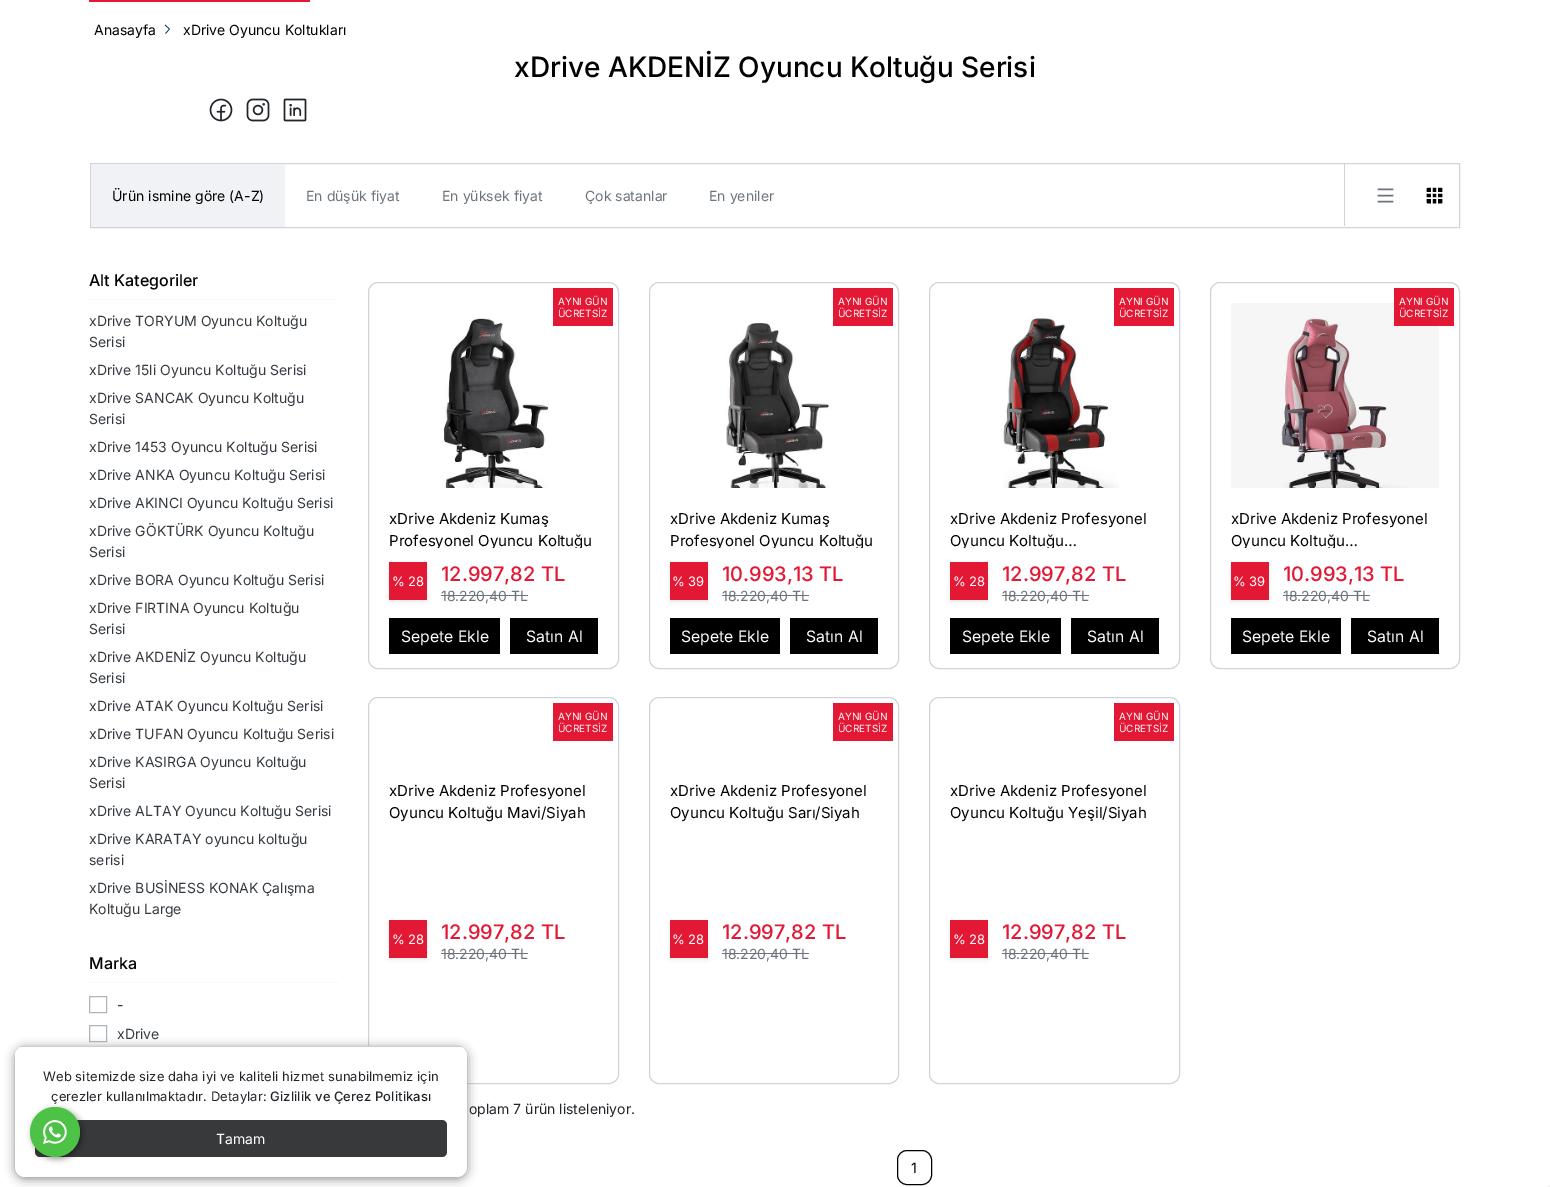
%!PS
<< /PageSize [1550 1187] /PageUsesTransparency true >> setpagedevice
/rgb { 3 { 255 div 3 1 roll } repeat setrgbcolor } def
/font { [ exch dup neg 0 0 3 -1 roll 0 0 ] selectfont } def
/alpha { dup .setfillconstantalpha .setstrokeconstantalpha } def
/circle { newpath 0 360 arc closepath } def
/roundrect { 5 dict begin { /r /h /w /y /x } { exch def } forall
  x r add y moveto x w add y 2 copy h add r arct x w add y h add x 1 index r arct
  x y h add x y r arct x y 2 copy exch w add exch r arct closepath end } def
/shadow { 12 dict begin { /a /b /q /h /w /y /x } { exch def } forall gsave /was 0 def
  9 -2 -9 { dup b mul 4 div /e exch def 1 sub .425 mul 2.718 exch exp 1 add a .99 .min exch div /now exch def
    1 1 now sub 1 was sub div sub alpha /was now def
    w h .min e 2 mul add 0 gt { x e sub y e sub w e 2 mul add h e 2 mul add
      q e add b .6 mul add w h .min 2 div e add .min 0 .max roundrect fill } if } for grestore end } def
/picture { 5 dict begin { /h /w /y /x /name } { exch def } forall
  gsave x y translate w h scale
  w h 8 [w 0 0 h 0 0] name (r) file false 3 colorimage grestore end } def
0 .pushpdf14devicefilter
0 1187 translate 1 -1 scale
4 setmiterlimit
255 255 255 rgb
0 0 1550 1187 rectfill
226 24 52 rgb
89 0 221 2 rectfill
16 49 120 rgb
0.7 setlinewidth
165 25 moveto 169.5 29 lineto 165.5 33.5 lineto stroke
(img/1.rgb) 209 98 24 24 picture
(img/2.rgb) 246 98 24 24 picture
(img/3.rgb) 283 98 24 24 picture
173 181 189 rgb
1 setlinewidth
89.5 1025.5 17 16 rectstroke
206 212 218 rgb
368.5 697.5 250 386 9.5 roundrect stroke
136 136 136 rgb
15 1048 452 131 10 5 1 shadow
255 255 255 rgb
15 1046 452 131 10 roundrect fill
204 204 204 rgb
20 1046 442 1 rectfill
55 57 59 rgb
35 1120 412 37 5 roundrect fill
206 212 218 rgb
90.5 163.5 1369 64 rectstroke
240 242 245 rgb
91 164 194 63 rectfill
206 212 218 rgb
1344 164 1 62 rectfill
(img/4.rgb) 1377 188 17 15 picture
(img/5.rgb) 1426 187 17 17 picture
248 249 250 rgb
89 299 250 1 rectfill
89 982 250 1 rectfill
173 181 189 rgb
89.5 996.5 17 16 rectstroke
206 212 218 rgb
368.5 282.5 250 386 9.5 roundrect stroke
226 24 52 rgb
553 288 60 38 rectfill
0 0 0 rgb
389 564 38 38 0 2 0.07 shadow
[
  [389 562 38 38 226 24 52]
  [441 595 87 1 108 117 125]
  [389 618 111 36 0 0 0]
  [510 618 88 36 0 0 0]
] { aload pop rgb rectfill } forall
(img/6.rgb) 443 318 106 170 picture
206 212 218 rgb
649.5 282.5 249 386 9.5 roundrect stroke
226 24 52 rgb
833 288 60 38 rectfill
0 0 0 rgb
670 564 38 38 0 2 0.07 shadow
[
  [670 562 38 38 226 24 52]
  [722 595 87 1 108 117 125]
  [670 618 110 36 0 0 0]
  [790 618 88 36 0 0 0]
] { aload pop rgb rectfill } forall
(img/7.rgb) 726 323 104 165 picture
206 212 218 rgb
929.5 282.5 250 386 9.5 roundrect stroke
(img/8.rgb) 1003 316 116 172 picture
226 24 52 rgb
1114 288 60 38 rectfill
0 0 0 rgb
950 564 38 38 0 2 0.07 shadow
[
  [950 562 38 38 226 24 52]
  [1002 595 87 1 108 117 125]
  [950 618 111 36 0 0 0]
  [1071 618 88 36 0 0 0]
] { aload pop rgb rectfill } forall
206 212 218 rgb
1210.5 282.5 249 386 9.5 roundrect stroke
(img/9.rgb) 1231 303 208 185 picture
226 24 52 rgb
1394 288 60 38 rectfill
0 0 0 rgb
1231 564 38 38 0 2 0.07 shadow
[
  [1231 562 38 38 226 24 52]
  [1283 595 87 1 108 117 125]
  [1231 618 110 36 0 0 0]
  [1351 618 88 36 0 0 0]
  [553 703 60 38 226 24 52]
] { aload pop rgb rectfill } forall
0 0 0 rgb
389 922 38 38 0 2 0.07 shadow
226 24 52 rgb
389 920 38 38 rectfill
108 117 125 rgb
441 953 87 1 rectfill
206 212 218 rgb
649.5 697.5 249 386 9.5 roundrect stroke
226 24 52 rgb
833 703 60 38 rectfill
0 0 0 rgb
670 922 38 38 0 2 0.07 shadow
226 24 52 rgb
670 920 38 38 rectfill
108 117 125 rgb
722 953 87 1 rectfill
206 212 218 rgb
929.5 697.5 250 386 9.5 roundrect stroke
226 24 52 rgb
1114 703 60 38 rectfill
0 0 0 rgb
950 922 38 38 0 2 0.07 shadow
226 24 52 rgb
950 920 38 38 rectfill
108 117 125 rgb
1002 953 87 1 rectfill
0 0 0 rgb
897.5 1150.5 34 34 9.5 roundrect stroke
32 1109 50 50 25 3 0.4 shadow
77 194 71 rgb
55 1132 25 circle fill
(img/10.rgb) 43 1120 24 24 picture
245 245 245 rgb
1548 1185 2 2 rectfill
/Inter-Regular 14 font
0 0 0 rgb
94 35 moveto (Anasayfa) show
183 35 moveto (xDrive Oyuncu Koltukları) show
/Inter-Medium 28 font
514 77 moveto (xDrive AKDENİZ Oyuncu Koltuğu Serisi) show
/Inter-Regular 13 font
33 37 41 rgb
43 1081 moveto 0.1 0 (Web sitemizde size daha iyi ve kaliteli hizmet sunabilmemiz için) ashow
51 1101 moveto 0.1 0 (çerezler kullanılmaktadır. Detaylar:) ashow
/Inter-Medium 13 font
270 1101 moveto 0.1 0 (Gizlilik ve Çerez Politikası) ashow
/Inter-Regular 14 font
255 255 255 rgb
216 1144 moveto (Tamam) show
0 0 0 rgb
112 201 moveto (Ürün ismine göre \(A-Z\)) show
108 117 125 rgb
[
  [(En düşük fiyat) 306 201]
  [(En yüksek fiyat) 442 201]
  [(Çok satanlar) 585 201]
  [(En yeniler) 709 201]
] { aload pop moveto show } forall
/Inter-Medium 16 font
0 0 0 rgb
89 286 moveto (Alt Kategoriler) show
/Inter-Regular 14 font
52 58 64 rgb
[
  [(xDrive TORYUM Oyuncu Koltuğu) 89 326]
  [(Serisi) 89 347]
  [(xDrive 15li Oyuncu Koltuğu Serisi) 89 375]
  [(xDrive SANCAK Oyuncu Koltuğu) 89 403]
  [(Serisi) 89 424]
  [(xDrive 1453 Oyuncu Koltuğu Serisi) 89 452]
  [(xDrive ANKA Oyuncu Koltuğu Serisi) 89 480]
  [(xDrive AKINCI Oyuncu Koltuğu Serisi) 89 508]
  [(xDrive GÖKTÜRK Oyuncu Koltuğu) 89 536]
  [(Serisi) 89 557]
  [(xDrive BORA Oyuncu Koltuğu Serisi) 89 585]
  [(xDrive FIRTINA Oyuncu Koltuğu) 89 613]
  [(Serisi) 89 634]
  [(xDrive AKDENİZ Oyuncu Koltuğu) 89 662]
  [(Serisi) 89 683]
  [(xDrive ATAK Oyuncu Koltuğu Serisi) 89 711]
  [(xDrive TUFAN Oyuncu Koltuğu Serisi) 89 739]
  [(xDrive KASIRGA Oyuncu Koltuğu) 89 767]
  [(Serisi) 89 788]
  [(xDrive ALTAY Oyuncu Koltuğu Serisi) 89 816]
  [(xDrive KARATAY oyuncu koltuğu) 89 844]
  [(serisi) 89 865]
  [(xDrive BUSİNESS KONAK Çalışma) 89 893]
  [(Koltuğu Large) 89 914]
] { aload pop moveto show } forall
/Inter-Medium 16 font
0 0 0 rgb
89 969 moveto (Marka) show
/Inter-Regular 14 font
52 58 64 rgb
117 1010 moveto (-) show
117 1039 moveto (xDrive) show
/Inter-Regular 10 font
255 255 255 rgb
558 305 moveto (AYNI GÜN) show
558 317 moveto (ÜCRETSİZ) show
/Inter-Regular 15 font
0 0 0 rgb
389 524 moveto (xDrive Akdeniz Kumaş) show
gsave
389 508 209 40 rectclip
389 546 moveto (Profesyonel Oyuncu Koltuğu) show
grestore
/Inter-Regular 13 font
255 255 255 rgb
392 586 moveto (% 28) show
/Inter-Medium 20 font
226 24 52 rgb
441 581 moveto (12.997,82 TL) show
/Inter-Regular 14 font
108 117 125 rgb
441 601 moveto (18.220,40 TL) show
/Inter-Regular 15.75 font
255 255 255 rgb
401 642 moveto (Sepete Ekle) show
526 642 moveto (Satın Al) show
/Inter-Regular 10 font
838 305 moveto (AYNI GÜN) show
838 317 moveto (ÜCRETSİZ) show
/Inter-Regular 15 font
0 0 0 rgb
670 524 moveto (xDrive Akdeniz Kumaş) show
gsave
670 508 208 40 rectclip
670 546 moveto (Profesyonel Oyuncu Koltuğu) show
grestore
/Inter-Regular 13 font
255 255 255 rgb
672 586 moveto (% 39) show
/Inter-Medium 20 font
226 24 52 rgb
722 581 moveto (10.993,13 TL) show
/Inter-Regular 14 font
108 117 125 rgb
722 601 moveto (18.220,40 TL) show
/Inter-Regular 15.75 font
255 255 255 rgb
681 642 moveto (Sepete Ekle) show
806 642 moveto (Satın Al) show
/Inter-Regular 10 font
1119 305 moveto (AYNI GÜN) show
1119 317 moveto (ÜCRETSİZ) show
/Inter-Regular 15 font
0 0 0 rgb
950 524 moveto (xDrive Akdeniz Profesyonel) show
gsave
950 508 209 40 rectclip
950 546 moveto (Oyuncu Koltuğu…) show
grestore
/Inter-Regular 13 font
255 255 255 rgb
953 586 moveto (% 28) show
/Inter-Medium 20 font
226 24 52 rgb
1002 581 moveto (12.997,82 TL) show
/Inter-Regular 14 font
108 117 125 rgb
1002 601 moveto (18.220,40 TL) show
/Inter-Regular 15.75 font
255 255 255 rgb
962 642 moveto (Sepete Ekle) show
1087 642 moveto (Satın Al) show
/Inter-Regular 10 font
1399 305 moveto (AYNI GÜN) show
1399 317 moveto (ÜCRETSİZ) show
/Inter-Regular 15 font
0 0 0 rgb
1231 524 moveto (xDrive Akdeniz Profesyonel) show
gsave
1231 508 208 40 rectclip
1231 546 moveto (Oyuncu Koltuğu…) show
grestore
/Inter-Regular 13 font
255 255 255 rgb
1233 586 moveto (% 39) show
/Inter-Medium 20 font
226 24 52 rgb
1283 581 moveto (10.993,13 TL) show
/Inter-Regular 14 font
108 117 125 rgb
1283 601 moveto (18.220,40 TL) show
/Inter-Regular 15.75 font
255 255 255 rgb
1242 642 moveto (Sepete Ekle) show
1367 642 moveto (Satın Al) show
/Inter-Regular 10 font
558 720 moveto (AYNI GÜN) show
558 732 moveto (ÜCRETSİZ) show
/Inter-Regular 15 font
0 0 0 rgb
389 796 moveto (xDrive Akdeniz Profesyonel) show
389 818 moveto (Oyuncu Koltuğu Mavi/Siyah) show
/Inter-Regular 13 font
255 255 255 rgb
392 944 moveto (% 28) show
/Inter-Medium 20 font
226 24 52 rgb
441 939 moveto (12.997,82 TL) show
/Inter-Regular 14 font
108 117 125 rgb
441 959 moveto (18.220,40 TL) show
/Inter-Regular 10 font
255 255 255 rgb
838 720 moveto (AYNI GÜN) show
838 732 moveto (ÜCRETSİZ) show
/Inter-Regular 15 font
0 0 0 rgb
670 796 moveto (xDrive Akdeniz Profesyonel) show
670 818 moveto (Oyuncu Koltuğu Sarı/Siyah) show
/Inter-Regular 13 font
255 255 255 rgb
672 944 moveto (% 28) show
/Inter-Medium 20 font
226 24 52 rgb
722 939 moveto (12.997,82 TL) show
/Inter-Regular 14 font
108 117 125 rgb
722 959 moveto (18.220,40 TL) show
/Inter-Regular 10 font
255 255 255 rgb
1119 720 moveto (AYNI GÜN) show
1119 732 moveto (ÜCRETSİZ) show
/Inter-Regular 15 font
0 0 0 rgb
950 796 moveto (xDrive Akdeniz Profesyonel) show
950 818 moveto (Oyuncu Koltuğu Yeşil/Siyah) show
/Inter-Regular 13 font
255 255 255 rgb
953 944 moveto (% 28) show
/Inter-Medium 20 font
226 24 52 rgb
1002 939 moveto (12.997,82 TL) show
/Inter-Regular 14 font
108 117 125 rgb
1002 959 moveto (18.220,40 TL) show
33 37 41 rgb
469 1114 moveto (oplam 7 ürün listeleniyor.) show
0 0 0 rgb
911 1173 moveto (1) show
.poppdf14devicefilter showpage
